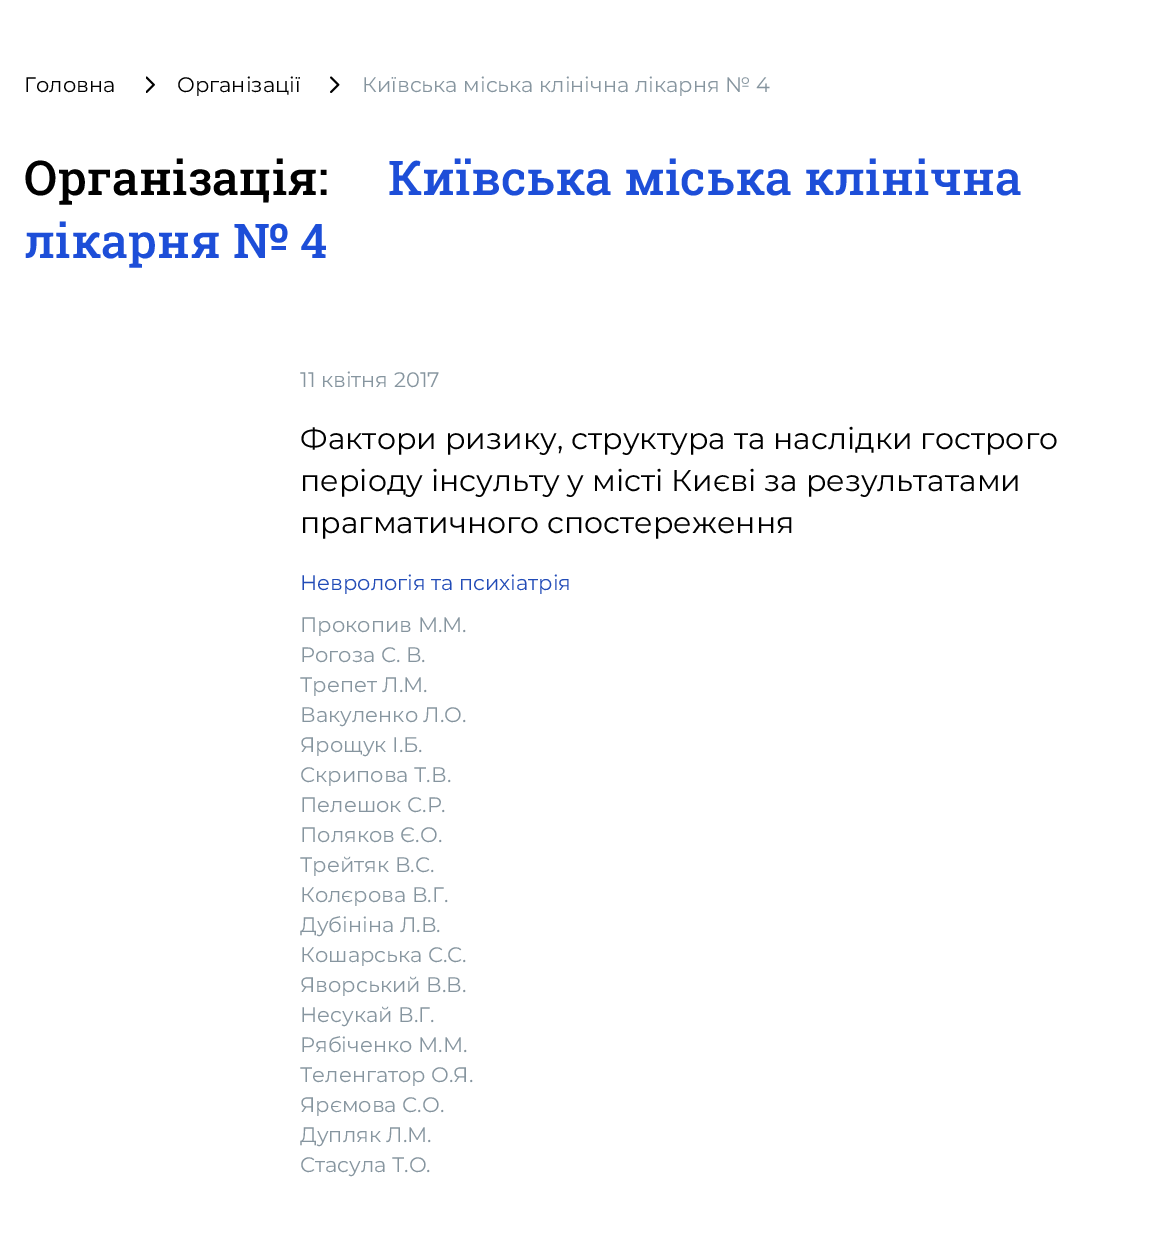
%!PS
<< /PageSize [1158 1256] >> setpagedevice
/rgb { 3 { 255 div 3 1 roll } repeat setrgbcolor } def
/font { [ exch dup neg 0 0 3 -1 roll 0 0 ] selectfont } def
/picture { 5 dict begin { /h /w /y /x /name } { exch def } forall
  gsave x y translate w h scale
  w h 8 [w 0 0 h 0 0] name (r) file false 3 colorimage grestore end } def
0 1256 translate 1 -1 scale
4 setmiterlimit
255 255 255 rgb
0 0 1158 1256 rectfill
(img/1.rgb) 146 76 9 17 picture
(img/2.rgb) 330 76 10 17 picture
/Montserrat-Regular 21 font
0 0 0 rgb
24 92 moveto (Головна) show
177 92 moveto (Організації) show
134 149 159 rgb
362 92 moveto (Київська міська клінічна лікарня № 4) show
/RobotoSlab-Medium 48 font
0 0 0 rgb
24 195 moveto (Організація:) show
29 78 216 rgb
388 195 moveto (Київська міська клінічна) show
24 258 moveto (лікарня № 4) show
/Montserrat-Regular 21 font
134 149 159 rgb
300 387 moveto (11 квітня 2017) show
/Montserrat-Regular 30 font
0 0 0 rgb
[
  [(Фактори ризику, структура та наслідки гострого) 300 449]
  [(періоду інсульту у місті Києві за результатами) 300 491]
  [(прагматичного спостереження) 300 533]
] { aload pop moveto show } forall
/Montserrat-Regular 21 font
33 75 183 rgb
300 590 moveto (Неврологія та психіатрія) show
134 149 159 rgb
[
  [(Прокопив М.М.) 300 632]
  [(Рогоза С. В.) 300 662]
  [(Трепет Л.М.) 300 692]
  [(Вакуленко Л.О.) 300 722]
  [(Ярощук І.Б.) 300 752]
  [(Скрипова Т.В.) 300 782]
  [(Пелешок С.Р.) 300 812]
  [(Поляков Є.О.) 300 842]
  [(Трейтяк В.С.) 300 872]
  [(Колєрова В.Г.) 300 902]
  [(Дубініна Л.В.) 300 932]
  [(Кошарська С.С.) 300 962]
  [(Яворський В.В.) 300 992]
  [(Несукай В.Г.) 300 1022]
  [(Рябіченко М.М.) 300 1052]
  [(Теленгатор О.Я.) 300 1082]
  [(Ярємова С.О.) 300 1112]
  [(Дупляк Л.М.) 300 1142]
  [(Стасула Т.О.) 300 1172]
] { aload pop moveto show } forall
showpage
